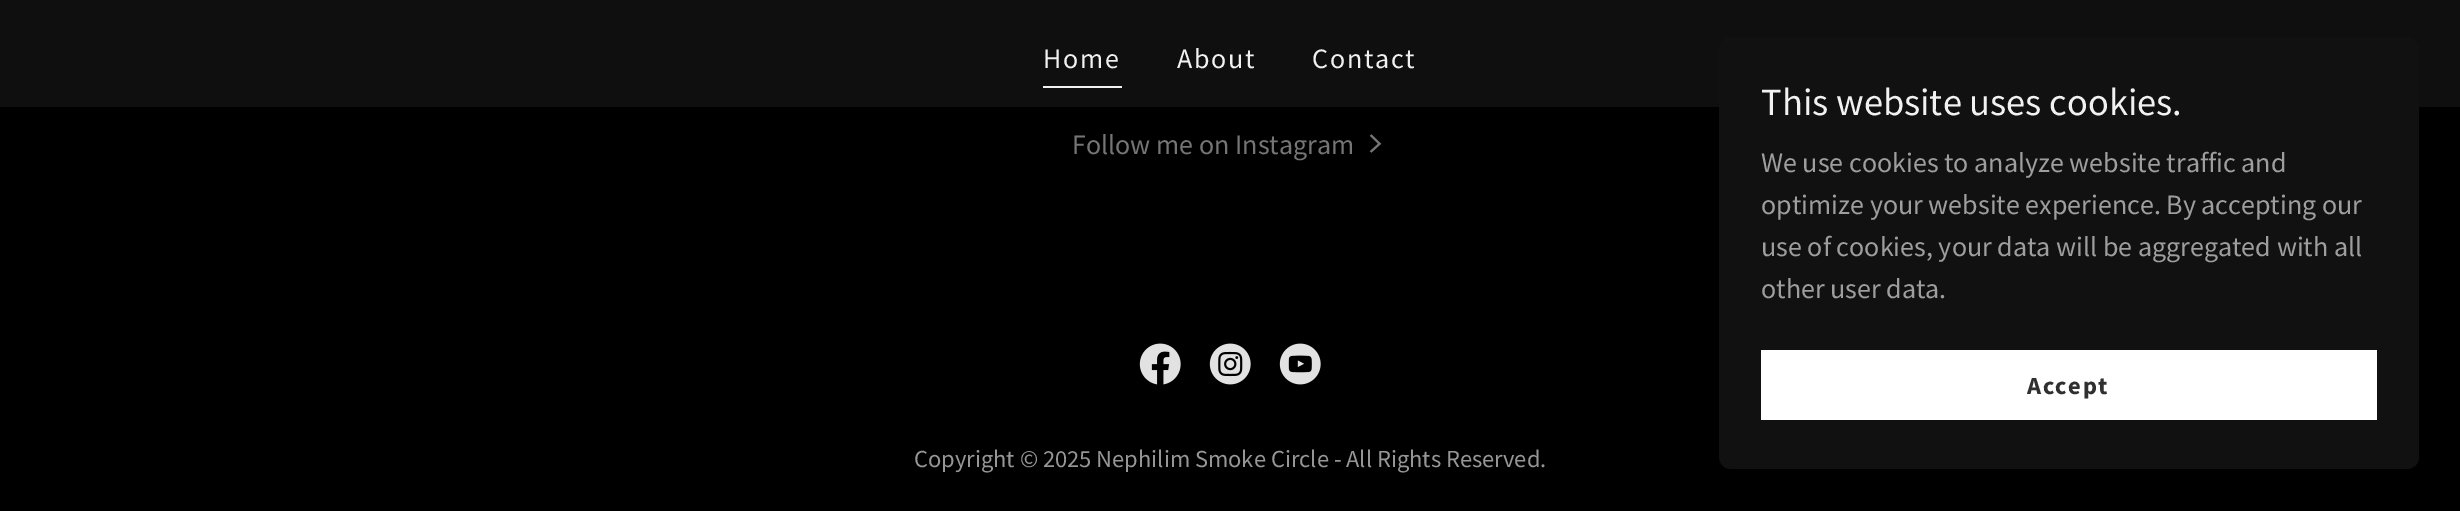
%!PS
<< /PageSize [2460 511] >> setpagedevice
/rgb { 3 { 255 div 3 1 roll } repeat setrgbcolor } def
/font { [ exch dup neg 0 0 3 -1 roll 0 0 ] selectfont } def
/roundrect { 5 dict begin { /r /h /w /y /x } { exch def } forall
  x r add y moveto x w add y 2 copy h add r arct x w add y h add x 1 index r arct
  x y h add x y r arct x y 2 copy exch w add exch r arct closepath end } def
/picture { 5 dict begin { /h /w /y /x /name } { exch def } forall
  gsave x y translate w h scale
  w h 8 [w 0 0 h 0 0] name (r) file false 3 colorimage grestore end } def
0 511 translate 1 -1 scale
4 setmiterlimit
0 0 0 rgb
0 0 2460 511 rectfill
15 15 15 rgb
0 0 2460 107 rectfill
241 241 241 rgb
1043 86 79 2 rectfill
(img/1.rgb) 1369 134 13 19 picture
17 17 17 rgb
1719 37 700 432 12 roundrect fill
255 255 255 rgb
1761 350 616 70 rectfill
(img/2.rgb) 1139 343 42 42 picture
(img/3.rgb) 1209 343 42 42 picture
(img/4.rgb) 1279 343 42 42 picture
/SourceSansPro-Regular 28 font
241 241 241 rgb
1043 68 moveto 1.75 0 (Home) ashow
1177 68 moveto 1.75 0 (About) ashow
1312 68 moveto 1.75 0 (Contact) ashow
117 117 117 rgb
1072 154 moveto (Follow me on Instagram) show
/SourceSansPro-Regular 38.5 font
241 241 241 rgb
1761 115 moveto (This website uses cookies.) show
/SourceSansPro-Regular 28 font
158 158 158 rgb
[
  [(We use cookies to analyze website traffic and) 1761 172]
  [(optimize your website experience. By accepting our) 1761 214]
  [(use of cookies, your data will be aggregated with all) 1761 256]
  [(other user data.) 1761 298]
] { aload pop moveto show } forall
/SourceSansPro-Bold 24.5 font
48 48 48 rgb
2027 394 moveto 1.5 0 (Accept) ashow
/SourceSansPro-Regular 24.5 font
150 150 150 rgb
914 467 moveto (Copyright © 2025 Nephilim Smoke Circle - All Rights Reserved.) show
showpage
